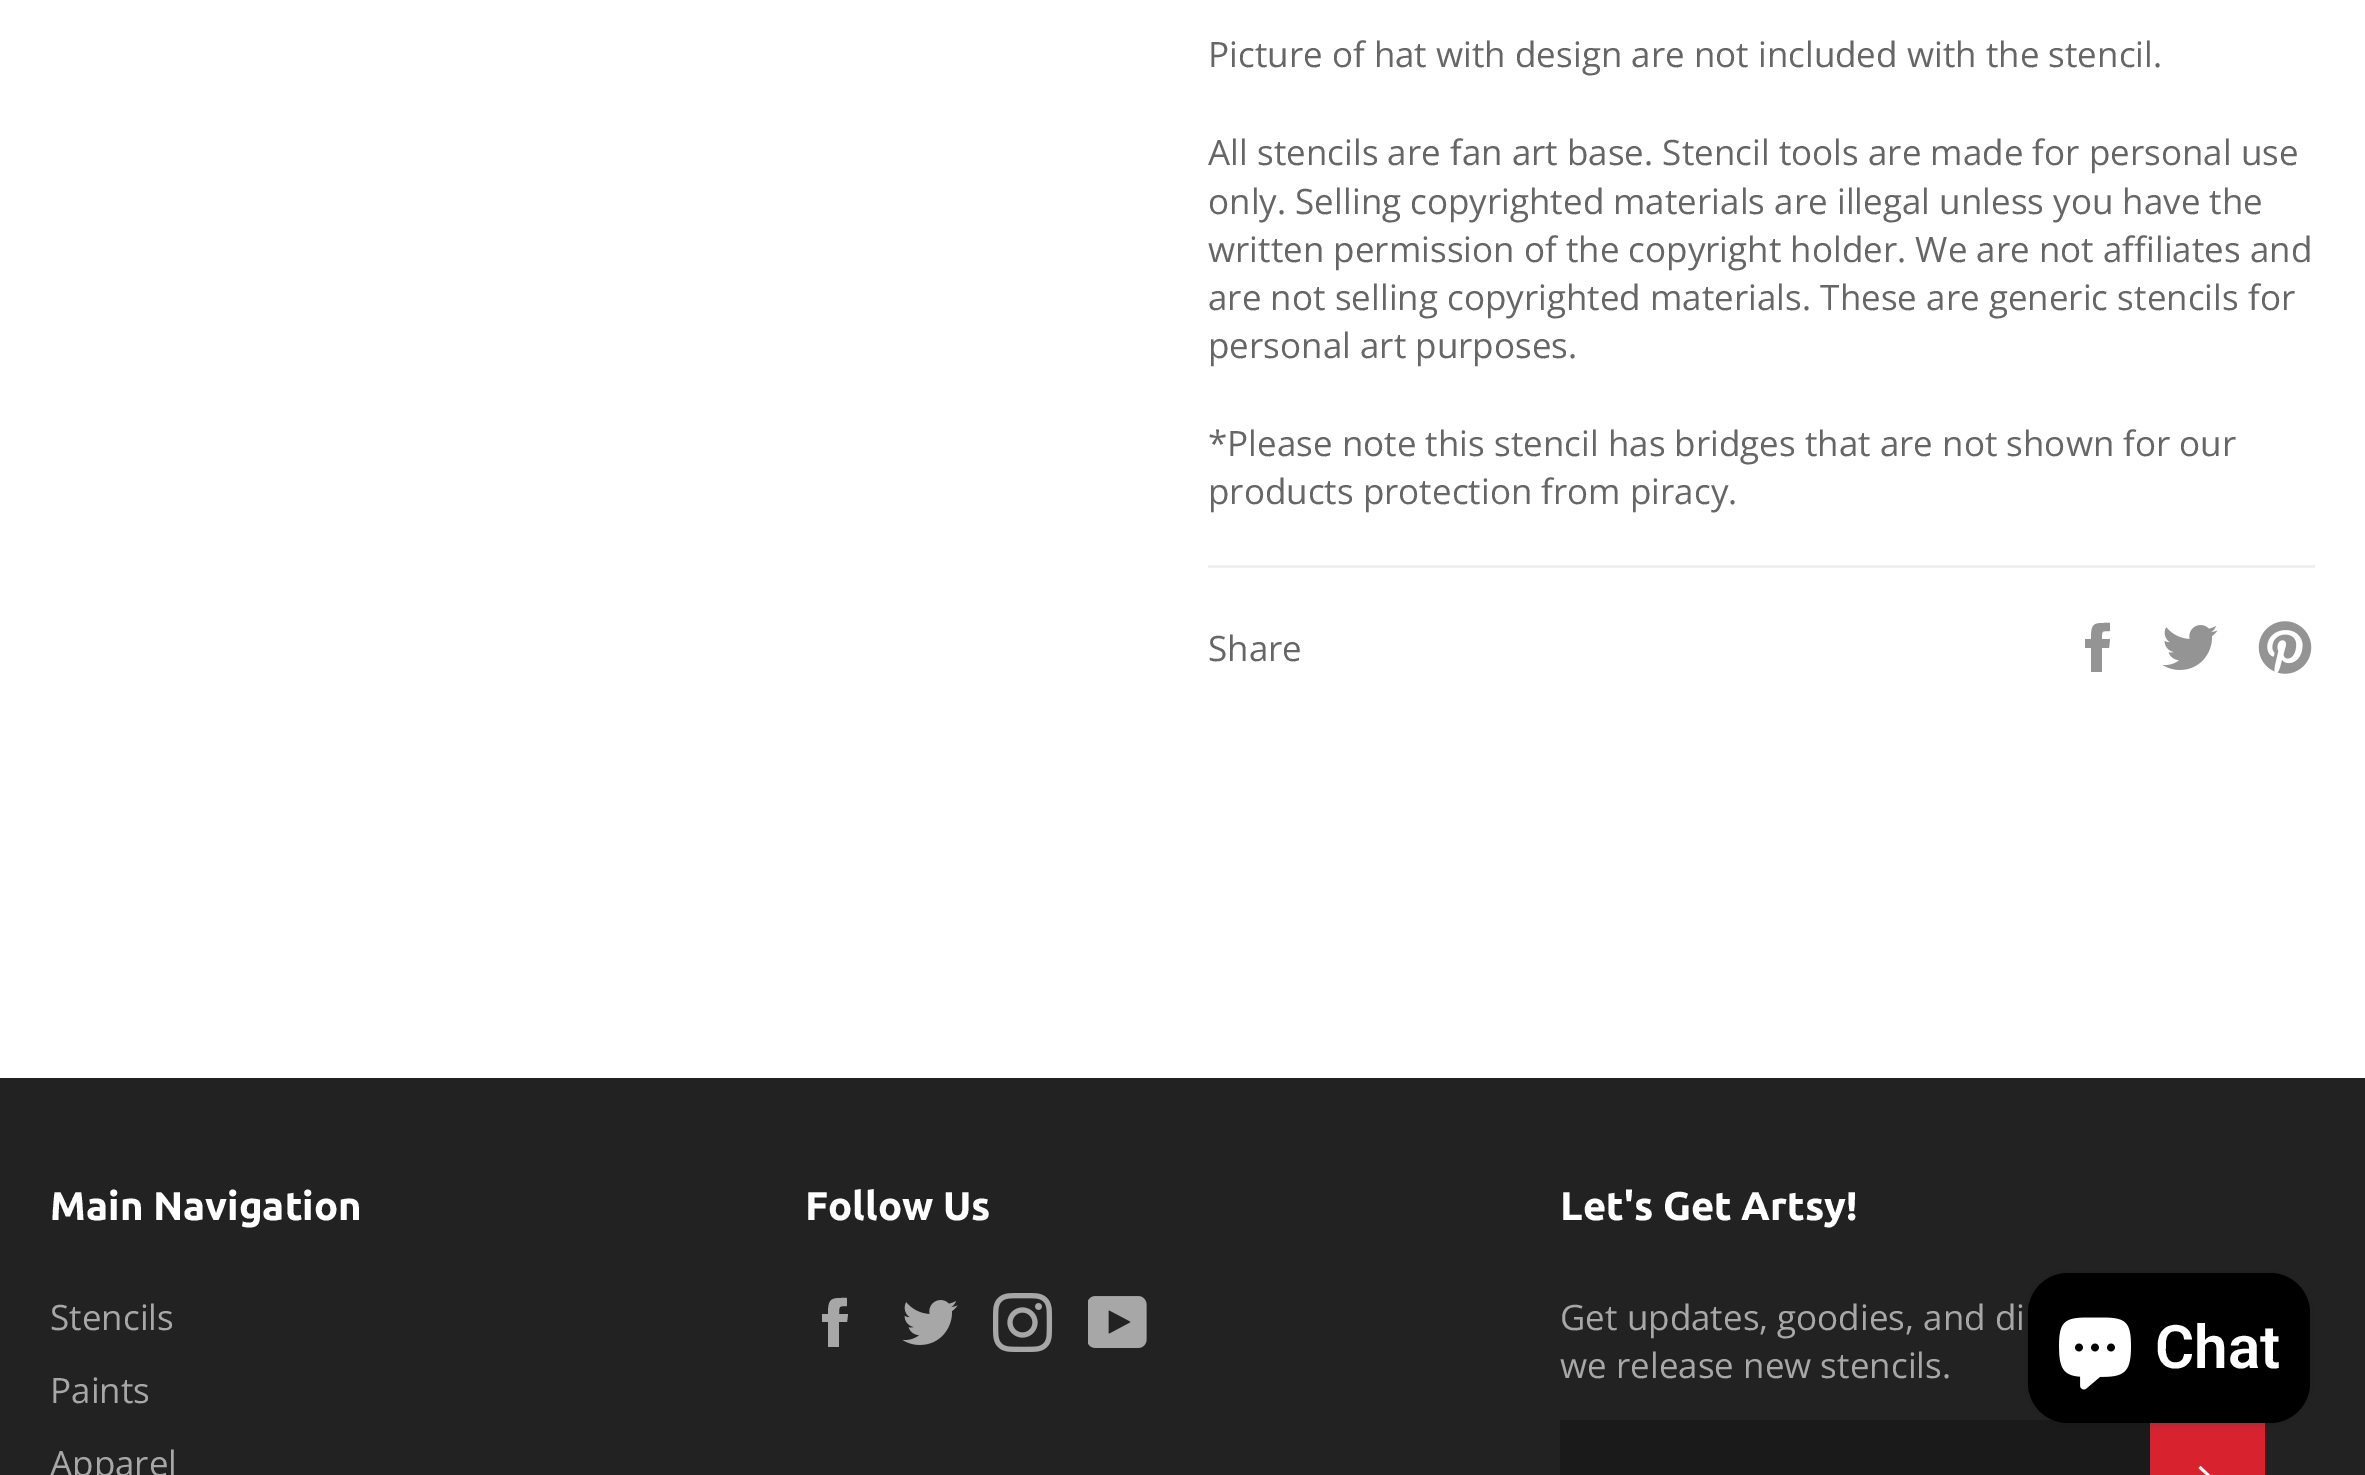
%!PS
<< /PageSize [2365 1475] /PageUsesTransparency true >> setpagedevice
/rgb { 3 { 255 div 3 1 roll } repeat setrgbcolor } def
/font { [ exch dup neg 0 0 3 -1 roll 0 0 ] selectfont } def
/alpha { dup .setfillconstantalpha .setstrokeconstantalpha } def
/roundrect { 5 dict begin { /r /h /w /y /x } { exch def } forall
  x r add y moveto x w add y 2 copy h add r arct x w add y h add x 1 index r arct
  x y h add x y r arct x y 2 copy exch w add exch r arct closepath end } def
/shadow { 12 dict begin { /a /b /q /h /w /y /x } { exch def } forall gsave /was 0 def
  9 -2 -9 { dup b mul 4 div /e exch def 1 sub .425 mul 2.718 exch exp 1 add a .99 .min exch div /now exch def
    1 1 now sub 1 was sub div sub alpha /was now def
    w h .min e 2 mul add 0 gt { x e sub y e sub w e 2 mul add h e 2 mul add
      q e add b .6 mul add w h .min 2 div e add .min 0 .max roundrect fill } if } for grestore end } def
/picture { 5 dict begin { /h /w /y /x /name } { exch def } forall
  gsave x y translate w h scale
  w h 8 [w 0 0 h 0 0] name (r) file false 3 colorimage grestore end } def
0 .pushpdf14devicefilter
0 1475 translate 1 -1 scale
4 setmiterlimit
255 255 255 rgb
0 0 2365 1475 rectfill
240 240 240 rgb
1208 565 1107 3 rectfill
148 148 148 rgb
2102 639 moveto 2102 631 2101 631 2110 631 curveto 2110 623 lineto 2094 623 2091 622 2091 639 curveto 2085 639 lineto 2085 648 lineto 2091 648 lineto 2091 672 lineto 2102 672 lineto 2102 648 lineto 2109 648 lineto 2110 639 lineto closepath fill
(img/1.rgb) 2162 625 56 45 picture
(img/2.rgb) 2258 621 54 53 picture
34 34 34 rgb
0 1078 2365 397 rectfill
167 167 167 rgb
839 1314 moveto 839 1306 839 1306 847 1306 curveto 847 1298 lineto 832 1298 828 1297 828 1314 curveto 822 1314 lineto 822 1322 lineto 828 1322 lineto 828 1347 lineto 839 1347 lineto 839 1322 lineto 847 1322 lineto 848 1314 lineto closepath fill
(img/3.rgb) 902 1300 56 45 picture
(img/4.rgb) 993 1293 60 59 picture
(img/5.rgb) 1088 1296 59 52 picture
26 26 26 rgb
1560 1420 590 55 rectfill
216 35 47 rgb
2150 1423 115 52 rectfill
255 255 255 rgb
2198.5 1468 moveto 2200.5 1466 lineto 2216.5 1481 lineto 2200.5 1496.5 lineto 2198.5 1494.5 lineto 2212.5 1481 lineto closepath fill
0 0 0 rgb
2028 1273 282 150 40 6 0.15 shadow
2028 1273 282 150 40 roundrect fill
(img/6.rgb) 2059 1317 72 73 picture
/OpenSans-Regular 35 font
102 102 102 rgb
[
  [(Picture of hat with design are not included with the stencil.) 1208 67]
  [(All stencils are fan art base. Stencil tools are made for personal use) 1208 165]
  [(only. Selling copyrighted materials are illegal unless you have the) 1208 214]
  [(written permission of the copyright holder. We are not affiliates and) 1208 262]
  [(are not selling copyrighted materials. These are generic stencils for) 1208 310]
  [(personal art purposes.) 1208 358]
  [(*Please note this stencil has bridges that are not shown for our) 1208 456]
  [(products protection from piracy.) 1208 504]
  [(Share) 1208 661]
] { aload pop moveto show } forall
/Ubuntu-Bold 40 font
255 255 255 rgb
50 1220 moveto (Main Navigation) show
/OpenSans-Regular 35 font
167 167 167 rgb
[
  [(Stencils) 50 1330]
  [(Paints) 50 1403]
  [(Apparel) 50 1476]
] { aload pop moveto show } forall
/Ubuntu-Bold 40 font
255 255 255 rgb
805 1220 moveto (Follow Us) show
1560 1220 moveto (Let's Get Artsy!) show
/OpenSans-Regular 35 font
167 167 167 rgb
1560 1330 moveto (Get updates, goodies, and di) show
1560 1378 moveto (we release new stencils.) show
/Roboto-SemiBold 60 font
255 255 255 rgb
2155 1368 moveto (Chat) show
.poppdf14devicefilter showpage
